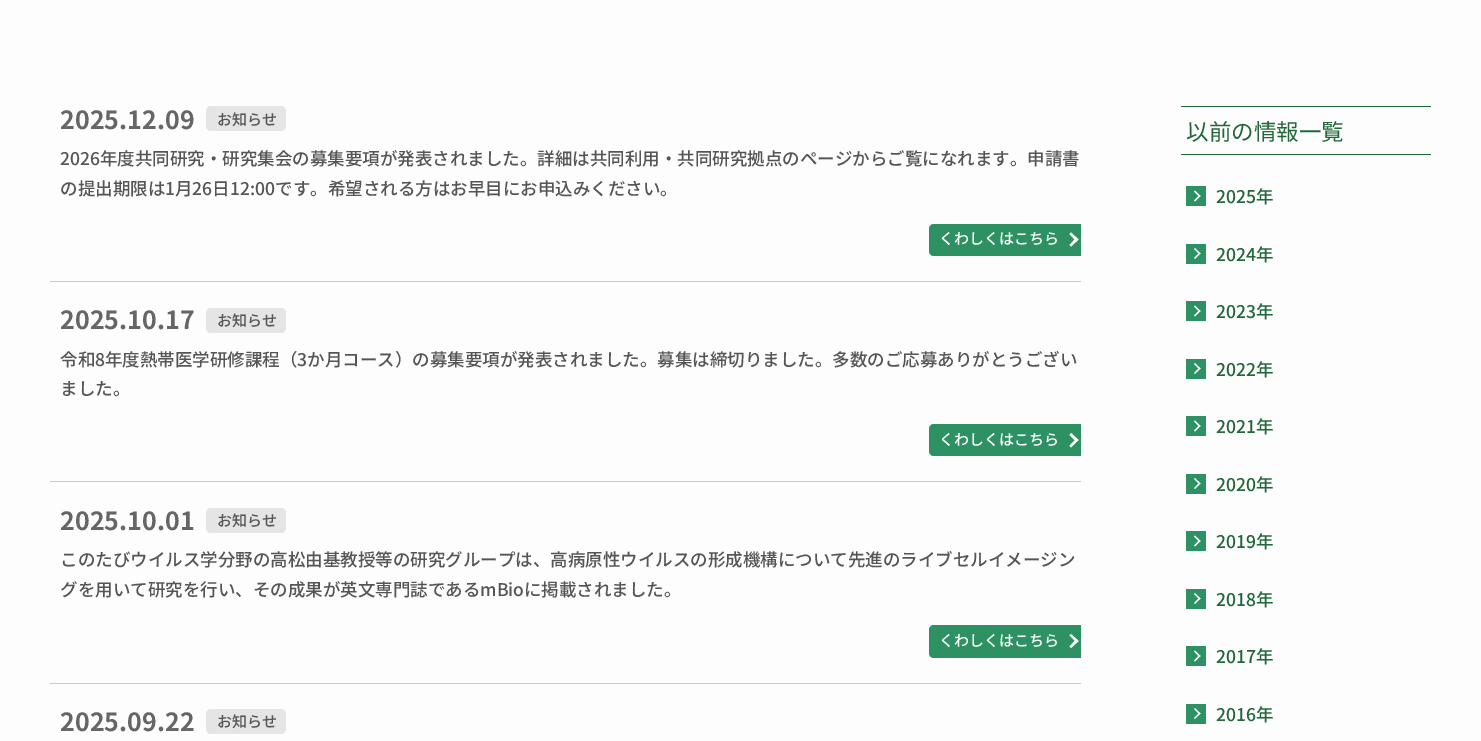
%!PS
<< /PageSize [1481 741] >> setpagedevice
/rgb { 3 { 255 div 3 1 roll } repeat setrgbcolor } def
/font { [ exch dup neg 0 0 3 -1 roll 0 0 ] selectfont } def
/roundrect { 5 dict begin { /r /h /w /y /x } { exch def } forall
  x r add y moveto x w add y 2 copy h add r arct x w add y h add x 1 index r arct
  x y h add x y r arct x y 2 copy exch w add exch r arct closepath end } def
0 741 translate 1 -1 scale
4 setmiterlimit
253 253 253 rgb
0 0 1481 741 rectfill
203 203 203 rgb
50 281 1031 1 rectfill
229 229 229 rgb
206 106 80 25 5 roundrect fill
45 145 100 rgb
934 224 moveto 1081 224 lineto 1081 256 lineto 934 256 lineto 931 256 929 254 929 251 curveto 929 229 lineto 929 226 931 224 934 224 curveto closepath fill
255 255 255 rgb
1071 232.5 moveto 1078.5 239.5 lineto 1076.5 241.5 lineto 1069.5 234 lineto closepath fill
1076.5 237.5 moveto 1078.5 239.5 lineto 1071 246.5 lineto 1069.5 245 lineto closepath fill
203 203 203 rgb
50 481 1031 1 rectfill
229 229 229 rgb
206 308 80 25 5 roundrect fill
45 145 100 rgb
934 424 moveto 1081 424 lineto 1081 456 lineto 934 456 lineto 931 456 929 454 929 451 curveto 929 429 lineto 929 426 931 424 934 424 curveto closepath fill
255 255 255 rgb
1071 433 moveto 1078.5 440 lineto 1076.5 442 lineto 1069.5 435 lineto closepath fill
1076.5 438.5 moveto 1078.5 440 lineto 1071 447.5 lineto 1069.5 445.5 lineto closepath fill
203 203 203 rgb
50 683 1031 1 rectfill
229 229 229 rgb
206 508 80 25 5 roundrect fill
45 145 100 rgb
934 625 moveto 1081 625 lineto 1081 658 lineto 934 658 lineto 931 658 929 656 929 653 curveto 929 630 lineto 929 627 931 625 934 625 curveto closepath fill
255 255 255 rgb
1071 634 moveto 1078.5 641 lineto 1076.5 642.5 lineto 1069.5 635.5 lineto closepath fill
1076.5 639 moveto 1078.5 641 lineto 1071 648 lineto 1069.5 646.5 lineto closepath fill
229 229 229 rgb
206 709 80 25 5 roundrect fill
[
  [1181 106 250 1 34 103 58]
  [1181 154 250 1 34 103 58]
  [1186 186 20 20 45 145 100]
] { aload pop rgb rectfill } forall
255 255 255 rgb
1195 190.5 moveto 1200.5 196 lineto 1199.5 197 lineto 1194 191.5 lineto closepath fill
1199.5 195 moveto 1200.5 196 lineto 1195 201.5 lineto 1194 200.5 lineto closepath fill
45 145 100 rgb
1186 244 20 20 rectfill
255 255 255 rgb
1195 248 moveto 1200.5 253.5 lineto 1199.5 254.5 lineto 1194 249 lineto closepath fill
1199.5 252.5 moveto 1200.5 253.5 lineto 1195 259 lineto 1194 258 lineto closepath fill
45 145 100 rgb
1186 301 20 20 rectfill
255 255 255 rgb
1195 305.5 moveto 1200.5 311 lineto 1199.5 312 lineto 1194 306.5 lineto closepath fill
1199.5 310 moveto 1200.5 311 lineto 1195 316.5 lineto 1194 315.5 lineto closepath fill
45 145 100 rgb
1186 359 20 20 rectfill
255 255 255 rgb
1195 363 moveto 1200.5 368.5 lineto 1199.5 369.5 lineto 1194 364 lineto closepath fill
1199.5 367.5 moveto 1200.5 368.5 lineto 1195 374 lineto 1194 373 lineto closepath fill
45 145 100 rgb
1186 416 20 20 rectfill
255 255 255 rgb
1195 420.5 moveto 1200.5 426 lineto 1199.5 427 lineto 1194 421.5 lineto closepath fill
1199.5 425 moveto 1200.5 426 lineto 1195 431.5 lineto 1194 430.5 lineto closepath fill
45 145 100 rgb
1186 474 20 20 rectfill
255 255 255 rgb
1195 478 moveto 1200.5 483.5 lineto 1199.5 484.5 lineto 1194 479 lineto closepath fill
1199.5 482.5 moveto 1200.5 483.5 lineto 1195 489 lineto 1194 488 lineto closepath fill
45 145 100 rgb
1186 531 20 20 rectfill
255 255 255 rgb
1195 535.5 moveto 1200.5 541 lineto 1199.5 542 lineto 1194 536.5 lineto closepath fill
1199.5 540 moveto 1200.5 541 lineto 1195 546.5 lineto 1194 545.5 lineto closepath fill
45 145 100 rgb
1186 589 20 20 rectfill
255 255 255 rgb
1195 593 moveto 1200.5 598.5 lineto 1199.5 599.5 lineto 1194 594 lineto closepath fill
1199.5 597.5 moveto 1200.5 598.5 lineto 1195 604 lineto 1194 603 lineto closepath fill
45 145 100 rgb
1186 646 20 20 rectfill
255 255 255 rgb
1195 650.5 moveto 1200.5 656 lineto 1199.5 657 lineto 1194 651.5 lineto closepath fill
1199.5 655 moveto 1200.5 656 lineto 1195 661.5 lineto 1194 660.5 lineto closepath fill
45 145 100 rgb
1186 704 20 20 rectfill
255 255 255 rgb
1195 708 moveto 1200.5 713.5 lineto 1199.5 714.5 lineto 1194 709 lineto closepath fill
1199.5 712.5 moveto 1200.5 713.5 lineto 1195 719 lineto 1194 718 lineto closepath fill
/NotoSansJP-Bold 25 font
102 102 102 rgb
60 129 moveto (2025.12.09) show
/NotoSansJP-Medium 15 font
85 85 85 rgb
217 125 moveto (お知らせ) show
/NotoSansJP-Medium 17.5 font
60 165 moveto (2026年度共同研究・研究集会の募集要項が発表されました。詳細は共同利用・共同研究拠点のページからご覧になれます。申請書) show
60 195 moveto (の提出期限は1月26日12:00です。希望される方はお早目にお申込みください。) show
/NotoSansJP-Medium 15 font
255 255 255 rgb
939 244 moveto (くわしくはこちら) show
/NotoSansJP-Bold 25 font
102 102 102 rgb
60 329 moveto (2025.10.17) show
/NotoSansJP-Medium 15 font
85 85 85 rgb
217 326 moveto (お知らせ) show
/NotoSansJP-Medium 17.5 font
60 366 moveto (令和8年度熱帯医学研修課程（3か月コース）の募集要項が発表されました。募集は締切りました。多数のご応募ありがとうござい) show
60 395 moveto (ました。) show
/NotoSansJP-Medium 15 font
255 255 255 rgb
939 445 moveto (くわしくはこちら) show
/NotoSansJP-Bold 25 font
102 102 102 rgb
60 530 moveto (2025.10.01) show
/NotoSansJP-Medium 15 font
85 85 85 rgb
217 526 moveto (お知らせ) show
/NotoSansJP-Medium 17.5 font
60 566 moveto (このたびウイルス学分野の高松由基教授等の研究グループは、高病原性ウイルスの形成機構について先進のライブセルイメージン) show
60 596 moveto (グを用いて研究を行い、その成果が英文専門誌であるmBioに掲載されました。) show
/NotoSansJP-Medium 15 font
255 255 255 rgb
939 646 moveto (くわしくはこちら) show
/NotoSansJP-Bold 25 font
102 102 102 rgb
60 731 moveto (2025.09.22) show
/NotoSansJP-Medium 15 font
85 85 85 rgb
217 727 moveto (お知らせ) show
/NotoSansJP-Regular 22.5 font
34 103 58 rgb
1186 140 moveto (以前の情報一覧) show
/NotoSansJP-Medium 17.5 font
[
  [(2025年) 1216 203]
  [(2024年) 1216 261]
  [(2023年) 1216 318]
  [(2022年) 1216 376]
  [(2021年) 1216 433]
  [(2020年) 1216 491]
  [(2019年) 1216 548]
  [(2018年) 1216 606]
  [(2017年) 1216 663]
  [(2016年) 1216 721]
] { aload pop moveto show } forall
showpage
